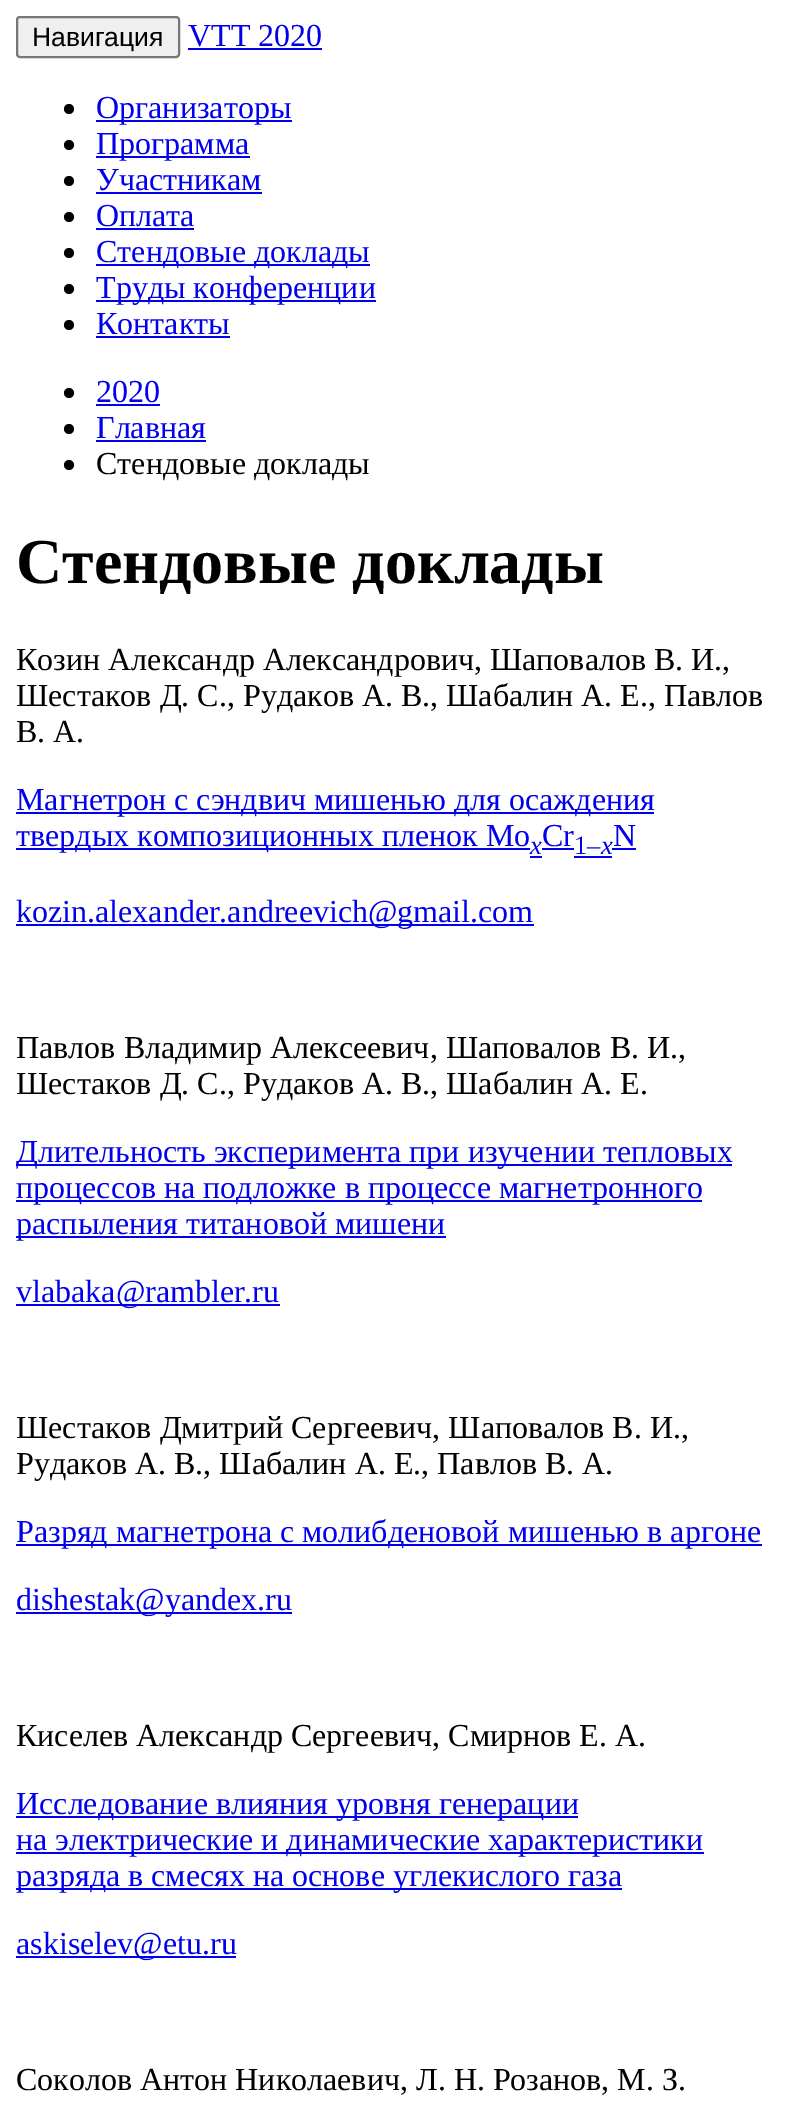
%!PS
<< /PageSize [786 2102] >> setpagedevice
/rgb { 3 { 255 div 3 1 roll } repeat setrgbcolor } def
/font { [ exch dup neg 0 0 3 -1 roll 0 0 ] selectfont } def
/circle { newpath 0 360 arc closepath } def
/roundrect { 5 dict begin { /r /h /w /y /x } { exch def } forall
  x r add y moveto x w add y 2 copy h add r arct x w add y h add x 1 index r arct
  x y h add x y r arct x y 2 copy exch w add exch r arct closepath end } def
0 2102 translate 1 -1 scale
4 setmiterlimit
255 255 255 rgb
0 0 786 2102 rectfill
239 239 239 rgb
17 17 162 40 3 roundrect gsave fill grestore
118 118 118 rgb
2 setlinewidth
stroke
0 0 238 rgb
188 48 134 2 rectfill
0 0 0 rgb
69 109 5 circle fill
0 0 238 rgb
96 120 196 2 rectfill
0 0 0 rgb
69 145 5 circle fill
0 0 238 rgb
96 156 154 2 rectfill
0 0 0 rgb
69 181 5 circle fill
0 0 238 rgb
96 192 166 2 rectfill
0 0 0 rgb
69 217 5 circle fill
0 0 238 rgb
96 228 98 2 rectfill
0 0 0 rgb
69 253 5 circle fill
0 0 238 rgb
96 264 274 2 rectfill
0 0 0 rgb
69 289 5 circle fill
0 0 238 rgb
96 300 280 2 rectfill
0 0 0 rgb
69 325 5 circle fill
0 0 238 rgb
96 336 134 2 rectfill
0 0 0 rgb
69 393 5 circle fill
0 0 238 rgb
96 404 64 2 rectfill
0 0 0 rgb
69 429 5 circle fill
0 0 238 rgb
96 440 110 2 rectfill
0 0 0 rgb
69 465 5 circle fill
[
  [16 812 638 2 0 0 238]
  [16 848 514 2 0 0 238]
  [530 856 12 2 0 0 238]
  [542 848 32 2 0 0 238]
  [574 856 38 2 0 0 238]
  [612 848 24 2 0 0 238]
  [16 924 518 2 0 0 238]
  [16 1164 716 2 0 0 238]
  [16 1200 686 2 0 0 238]
  [16 1236 430 2 0 0 238]
  [16 1304 264 2 0 0 238]
  [16 1544 746 2 0 0 238]
  [16 1612 276 2 0 0 238]
  [16 1816 562 2 0 0 238]
  [16 1852 688 2 0 0 238]
  [16 1888 606 2 0 0 238]
  [16 1956 220 2 0 0 238]
] { aload pop rgb rectfill } forall
/LiberationSans-Regular 26.5 font
0 0 0 rgb
32 46 moveto (Навигация) show
/LiberationSerif-Regular 32 font
0 0 238 rgb
[
  [(VTT 2020) 188 46]
  [(Организаторы) 96 118]
  [(Программа) 96 154]
  [(Участникам) 96 190]
  [(Оплата) 96 226]
  [(Стендовые доклады) 96 262]
  [(Труды конференции) 96 298]
  [(Контакты) 96 334]
  [(2020) 96 402]
  [(Главная) 96 438]
] { aload pop moveto show } forall
0 0 0 rgb
96 474 moveto (Стендовые доклады) show
/LiberationSerif-Bold 64 font
16 583 moveto (Стендовые доклады) show
/LiberationSerif-Regular 32 font
[
  [(Козин Александр Александрович, Шаповалов В. И.,) 16 670]
  [(Шестаков Д. С., Рудаков А. В., Шабалин А. Е., Павлов) 16 706]
  [(В. А.) 16 742]
] { aload pop moveto show } forall
0 0 238 rgb
16 810 moveto (Магнетрон с сэндвич мишенью для осаждения) show
16 846 moveto (твердых композиционных пленок Mo) show
/LiberationSerif-Italic 26.5 font
530 854 moveto (x) show
/LiberationSerif-Regular 32 font
542 846 moveto (Cr) show
/LiberationSerif-Regular 26.5 font
574 854 moveto (1–) show
/LiberationSerif-Italic 26.5 font
601 854 moveto (x) show
/LiberationSerif-Regular 32 font
613 846 moveto (N) show
16 922 moveto (kozin.alexander.andreevich@gmail.com) show
0 0 0 rgb
16 1058 moveto (Павлов Владимир Алексеевич, Шаповалов В. И.,) show
16 1094 moveto (Шестаков Д. С., Рудаков А. В., Шабалин А. Е.) show
0 0 238 rgb
[
  [(Длительность эксперимента при изучении тепловых) 16 1162]
  [(процессов на подложке в процессе магнетронного) 16 1198]
  [(распыления титановой мишени) 16 1234]
  [(vlabaka@rambler.ru) 16 1302]
] { aload pop moveto show } forall
0 0 0 rgb
16 1438 moveto (Шестаков Дмитрий Сергеевич, Шаповалов В. И.,) show
16 1474 moveto (Рудаков А. В., Шабалин А. Е., Павлов В. А.) show
0 0 238 rgb
16 1542 moveto (Разряд магнетрона с молибденовой мишенью в аргоне) show
16 1610 moveto (dishestak@yandex.ru) show
0 0 0 rgb
16 1746 moveto (Киселев Александр Сергеевич, Смирнов Е. А.) show
0 0 238 rgb
[
  [(Исследование влияния уровня генерации) 16 1814]
  [(на электрические и динамические характеристики) 16 1850]
  [(разряда в смесях на основе углекислого газа) 16 1886]
  [(askiselev@etu.ru) 16 1954]
] { aload pop moveto show } forall
0 0 0 rgb
16 2090 moveto (Соколов Антон Николаевич, Л. Н. Розанов, М. З.) show
showpage
